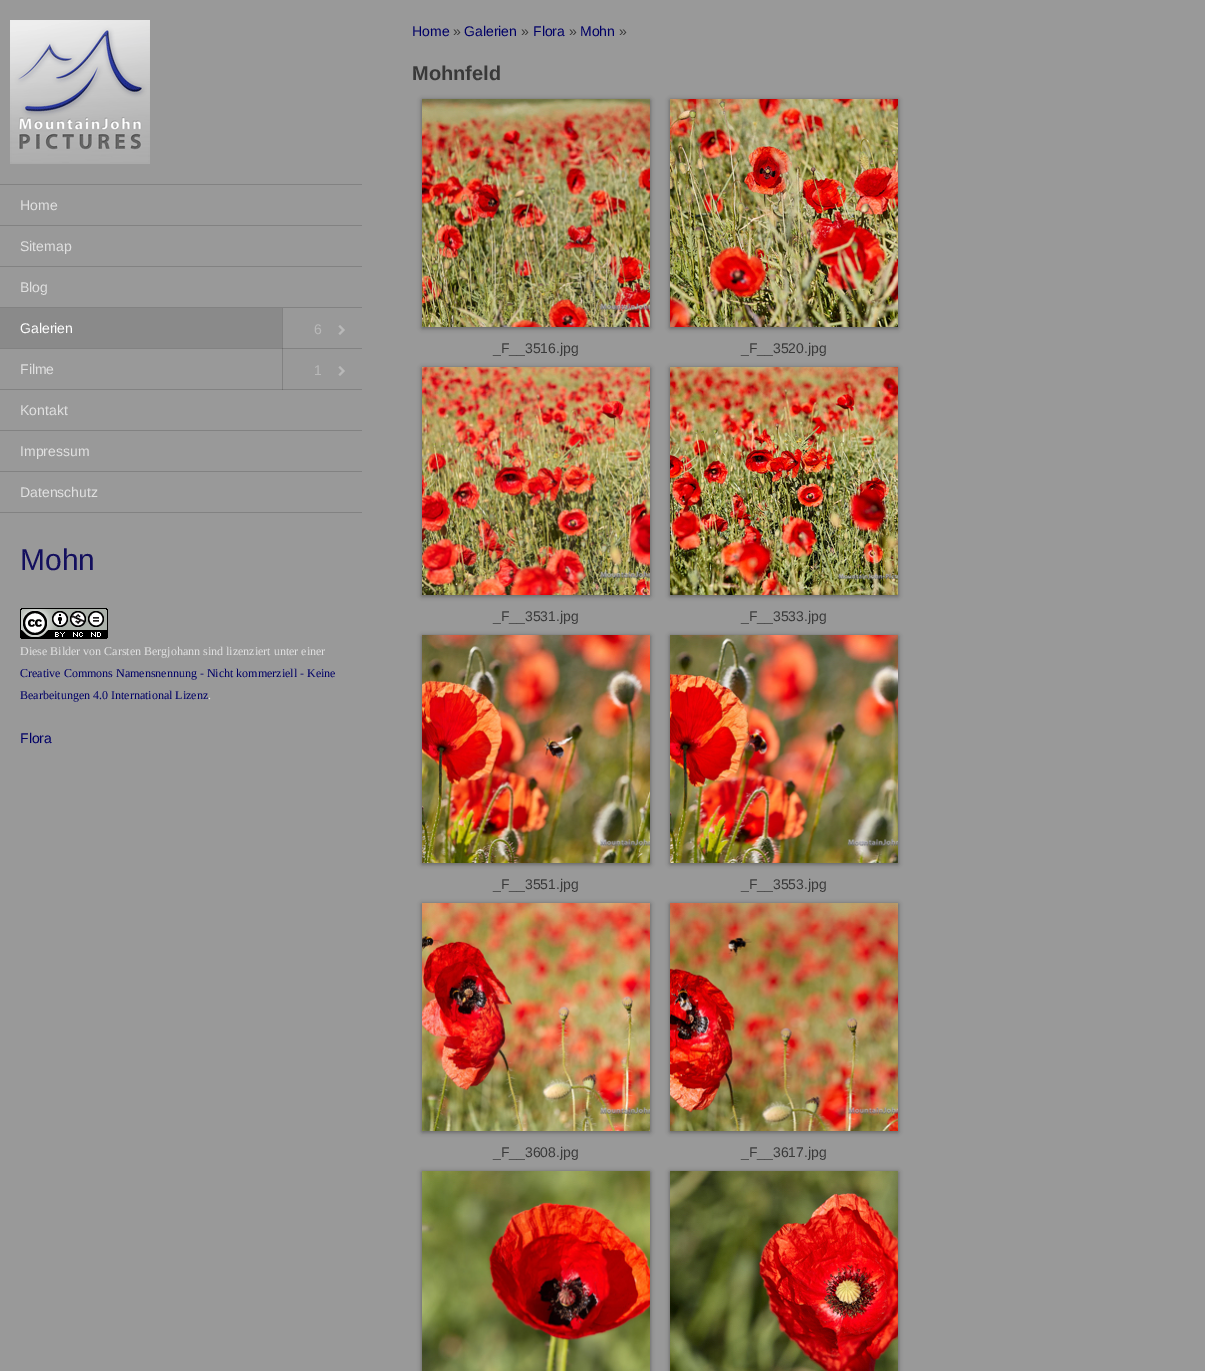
%!PS
<< /PageSize [1205 1371] /PageUsesTransparency true >> setpagedevice
/rgb { 3 { 255 div 3 1 roll } repeat setrgbcolor } def
/font { [ exch dup neg 0 0 3 -1 roll 0 0 ] selectfont } def
/alpha { dup .setfillconstantalpha .setstrokeconstantalpha } def
/roundrect { 5 dict begin { /r /h /w /y /x } { exch def } forall
  x r add y moveto x w add y 2 copy h add r arct x w add y h add x 1 index r arct
  x y h add x y r arct x y 2 copy exch w add exch r arct closepath end } def
/shadow { 12 dict begin { /a /b /q /h /w /y /x } { exch def } forall gsave /was 0 def
  9 -2 -9 { dup b mul 4 div /e exch def 1 sub .425 mul 2.718 exch exp 1 add a .99 .min exch div /now exch def
    1 1 now sub 1 was sub div sub alpha /was now def
    w h .min e 2 mul add 0 gt { x e sub y e sub w e 2 mul add h e 2 mul add
      q e add b .6 mul add w h .min 2 div e add .min 0 .max roundrect fill } if } for grestore end } def
/picture { 5 dict begin { /h /w /y /x /name } { exch def } forall
  gsave x y translate w h scale
  w h 8 [w 0 0 h 0 0] name (r) file false 3 colorimage grestore end } def
0 .pushpdf14devicefilter
0 1371 translate 1 -1 scale
4 setmiterlimit
153 153 153 rgb
0 0 1205 1371 rectfill
130 130 130 rgb
282 308 1 82 rectfill
(img/1.rgb) 10 20 140 144 picture
[
  [0 184 362 1 130 130 130]
  [0 225 362 1 130 130 130]
  [0 266 362 1 130 130 130]
  [0 307 362 1 130 130 130]
  [0 308 282 40 138 138 138]
  [0 348 362 1 130 130 130]
] { aload pop rgb rectfill } forall
184 184 184 rgb
340 325 moveto 345 330 lineto 342 330 lineto 338.5 326.5 lineto closepath 345 330 moveto 340 335 lineto 338.5 333.5 lineto 342 330 lineto closepath 340 366 moveto 345 371 lineto 342 371 lineto 338.5 367.5 lineto closepath 345 371 moveto 340 376 lineto 338.5 374.5 lineto 342 371 lineto closepath fill
[
  [282 348 1 1 111 111 111]
  [0 389 362 1 130 130 130]
  [282 389 1 1 111 111 111]
  [0 430 362 1 130 130 130]
  [0 471 362 1 130 130 130]
  [0 512 362 1 130 130 130]
] { aload pop rgb rectfill } forall
(img/2.rgb) 20 608 88 31 picture
0 0 0 rgb
422 100 228 228 0 2.5 0.4 shadow
(img/3.rgb) 422 99 228 228 picture
670 100 228 228 0 2.5 0.4 shadow
(img/4.rgb) 670 99 228 228 picture
422 368 228 228 0 2.5 0.4 shadow
(img/5.rgb) 422 367 228 228 picture
670 368 228 228 0 2.5 0.4 shadow
(img/6.rgb) 670 367 228 228 picture
422 636 228 228 0 2.5 0.4 shadow
(img/7.rgb) 422 635 228 228 picture
670 636 228 228 0 2.5 0.4 shadow
(img/8.rgb) 670 635 228 228 picture
422 904 228 228 0 2.5 0.4 shadow
(img/9.rgb) 422 903 228 228 picture
670 904 228 228 0 2.5 0.4 shadow
(img/10.rgb) 670 903 228 228 picture
422 1172 228 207 0 2.5 0.4 shadow
(img/11.rgb) 422 1171 228 200 picture
670 1172 228 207 0 2.5 0.4 shadow
(img/12.rgb) 670 1171 228 200 picture
/LiberationSans-Regular 14 font
224 224 224 rgb
[
  [(Home) 20 210]
  [(Sitemap) 20 251]
  [(Blog) 20 292]
] { aload pop moveto show } forall
255 255 255 rgb
20 333 moveto (Galerien) show
184 184 184 rgb
314 334 moveto (6) show
224 224 224 rgb
20 374 moveto (Filme) show
184 184 184 rgb
314 375 moveto (1) show
224 224 224 rgb
[
  [(Kontakt) 20 415]
  [(Impressum) 20 456]
  [(Datenschutz) 20 497]
] { aload pop moveto show } forall
/LiberationSans-Regular 30 font
20 16 94 rgb
20 570 moveto (Mohn) show
/LiberationSerif-Regular 12 font
224 224 224 rgb
20 655 moveto (Diese Bilder von Carsten Bergjohann sind lizenziert unter einer) show
0 0 102 rgb
20 677 moveto (Creative Commons Namensnennung - Nicht kommerziell - Keine) show
20 699 moveto (Bearbeitungen 4.0 International Lizenz) show
224 224 224 rgb
208 699 moveto (.) show
/LiberationSans-Regular 14 font
0 0 102 rgb
20 743 moveto (Flora) show
412 36 moveto (Home) show
57 57 57 rgb
453 36 moveto (») show
0 0 102 rgb
464 36 moveto (Galerien) show
57 57 57 rgb
521 36 moveto (») show
0 0 102 rgb
533 36 moveto (Flora) show
57 57 57 rgb
569 36 moveto (») show
0 0 102 rgb
580 36 moveto (Mohn) show
57 57 57 rgb
619 36 moveto (») show
/LiberationSans-Bold 20 font
412 80 moveto (Mohnfeld) show
/LiberationSans-Regular 14 font
[
  [(_F__3516.jpg) 493 353]
  [(_F__3520.jpg) 741 353]
  [(_F__3531.jpg) 493 621]
  [(_F__3533.jpg) 741 621]
  [(_F__3551.jpg) 493 889]
  [(_F__3553.jpg) 741 889]
  [(_F__3608.jpg) 493 1157]
  [(_F__3617.jpg) 741 1157]
] { aload pop moveto show } forall
.poppdf14devicefilter showpage
